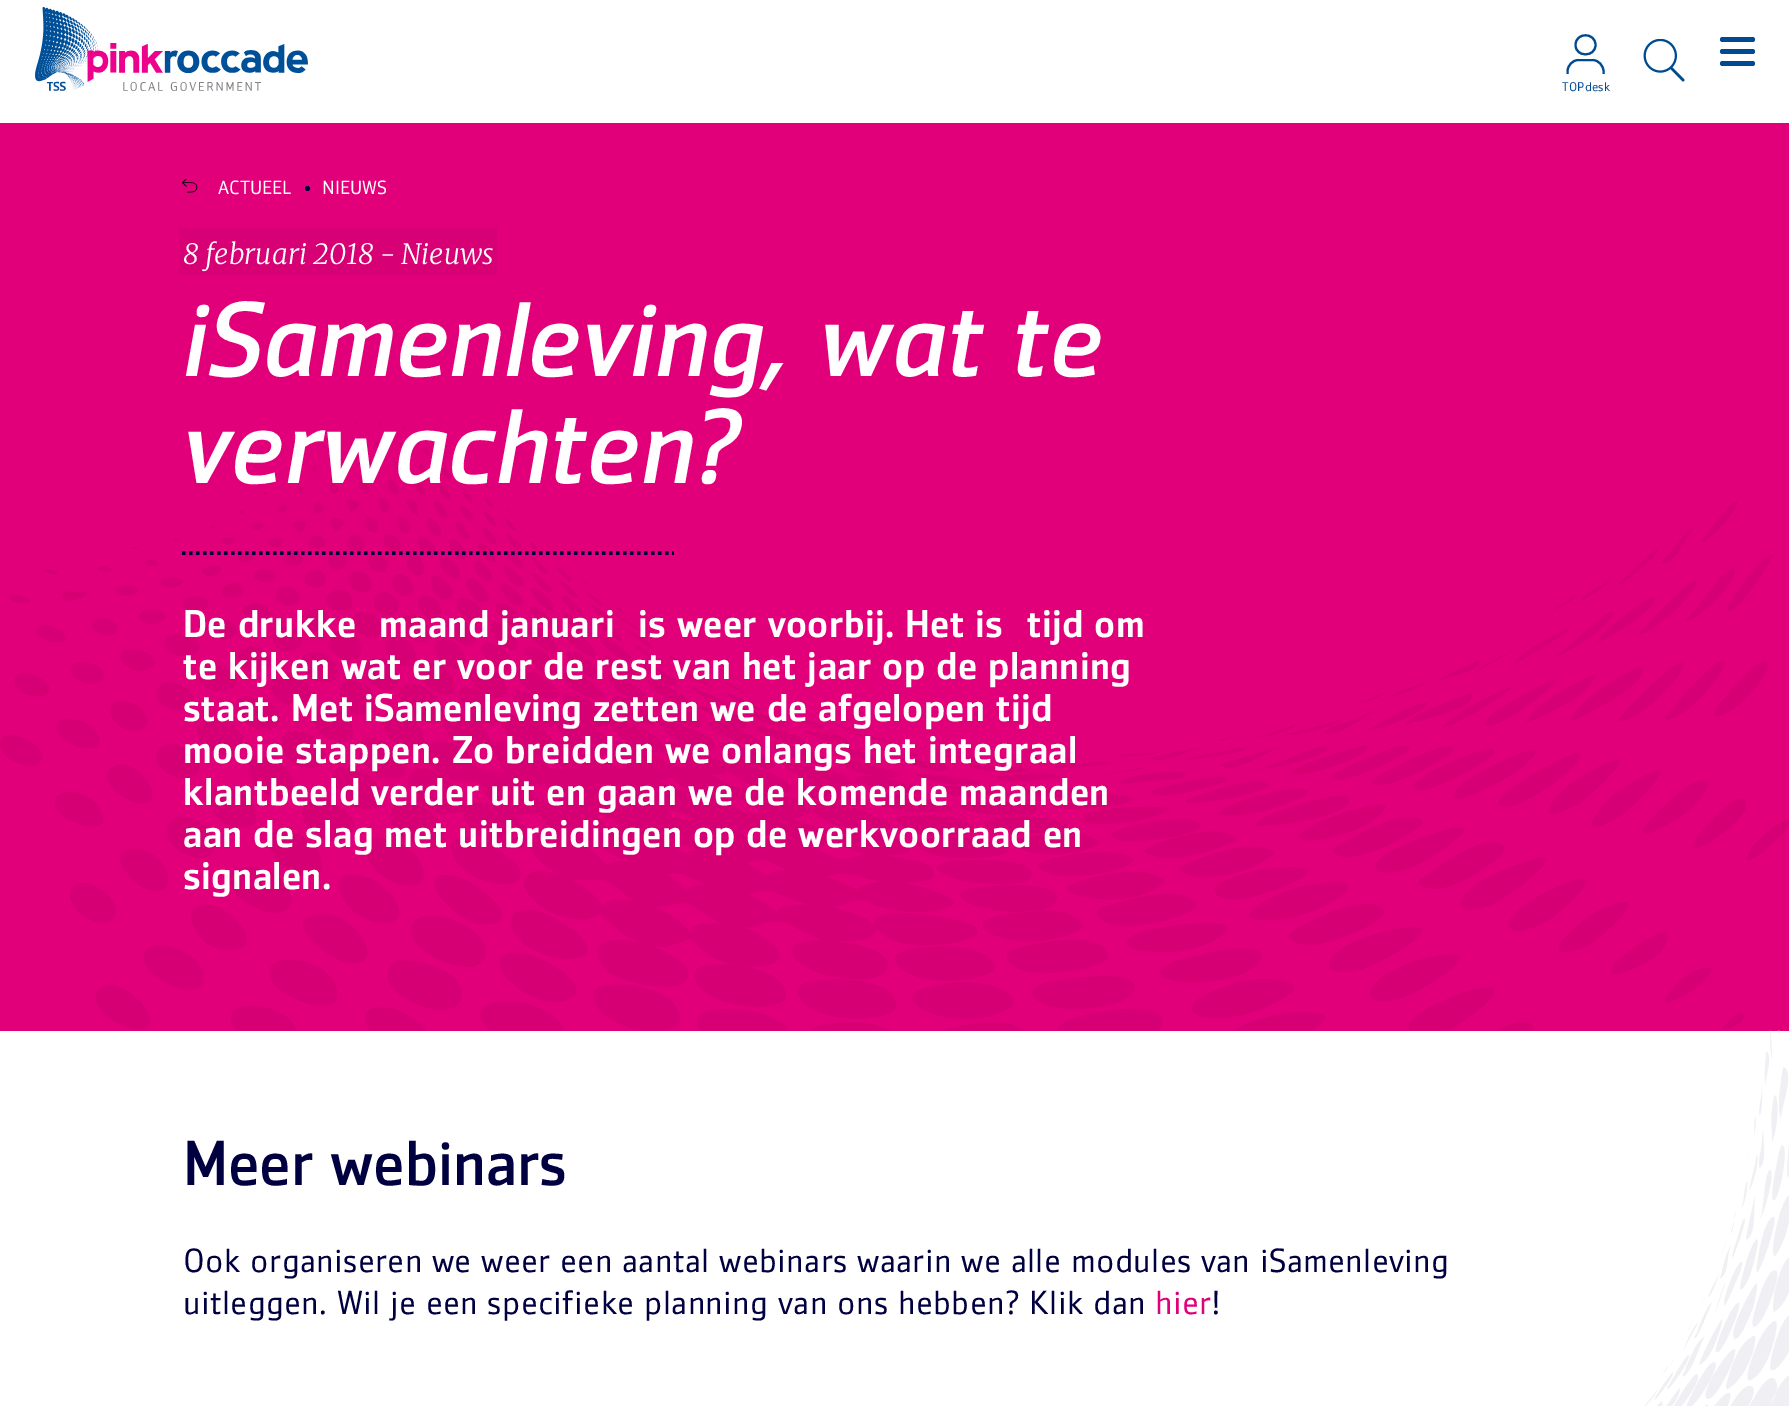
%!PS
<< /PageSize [1789 1406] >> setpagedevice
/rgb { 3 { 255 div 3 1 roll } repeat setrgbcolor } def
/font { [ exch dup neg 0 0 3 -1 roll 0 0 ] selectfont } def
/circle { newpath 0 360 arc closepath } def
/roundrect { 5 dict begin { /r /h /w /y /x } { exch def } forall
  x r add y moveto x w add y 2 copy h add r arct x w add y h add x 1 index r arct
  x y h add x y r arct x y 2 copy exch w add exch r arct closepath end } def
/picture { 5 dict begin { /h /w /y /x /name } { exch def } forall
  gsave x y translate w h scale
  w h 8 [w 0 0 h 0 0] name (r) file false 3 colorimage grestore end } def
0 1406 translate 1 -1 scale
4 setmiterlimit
255 255 255 rgb
0 0 1789 1406 rectfill
(img/1.rgb) 35 7 273 84 picture
(img/2.rgb) 1643 39 42 43 picture
0 74 145 rgb
1720 49 35 5 2.5 roundrect fill
1720 37 35 5 2.5 roundrect fill
1720 61 35 5 2.5 roundrect fill
2.1 setlinewidth
1595.5 45 moveto 1595.5 57.5 1575.5 57.5 1575.5 45 curveto 1575.5 32 1595.5 32 1595.5 45 curveto 1603.5 74 moveto 1603.5 71.5 lineto 1603.5 65.5 1598.5 60 1592.5 60 curveto 1578.5 60 lineto 1572.5 60 1567.5 65.5 1567.5 71.5 curveto 1567.5 74 lineto stroke
226 0 122 rgb
0 123 1789 908 rectfill
(img/3.rgb) 182 179 16 14 picture
0 0 65 rgb
307.5 188.5 2.5 circle fill
215 0 116 rgb
179 228 318 47 rectfill
(img/4.rgb) 0 396 1789 635 picture
0 0 65 rgb
3.5 setlinewidth
[3.5 3.5] 0 setdash
182 553 moveto 674 553 lineto stroke
(img/5.rgb) 1645 1030 144 376 picture
/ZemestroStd-Light 12.5 font
0 74 145 rgb
1562 91 moveto 0.25 0 (TOPdesk) ashow
/ZemestroStd-Light 19 font
255 255 255 rgb
218 194 moveto (ACTUEEL) show
322 194 moveto (NIEUWS) show
/Merriweather-LightItalic 28 font
183 264 moveto (8 februari 2018 - Nieuws) show
/ZemestroStd-Italic 105 font
183 376 moveto (iSamenleving, wat te) show
183 483 moveto (verwachten?) show
/ZemestroStd-Medium 38.5 font
183 637 moveto 0.35 0 (De drukke) ashow
379 637 moveto 0.35 0 (maand januari) ashow
638 637 moveto 0.35 0 (is weer voorbij. Het is) ashow
1027 637 moveto 0.35 0 (tijd om) ashow
183 679 moveto 0.35 0 (te kijken wat er voor de rest van het jaar op de planning) ashow
183 721 moveto 0.35 0 (staat. Met iSamenleving zetten we de afgelopen tijd) ashow
183 763 moveto 0.35 0 (mooie stappen. Zo breidden we onlangs het integraal) ashow
183 805 moveto 0.35 0 (klantbeeld verder uit en gaan we de komende maanden) ashow
183 847 moveto 0.35 0 (aan de slag met uitbreidingen op de werkvoorraad en) ashow
183 889 moveto 0.35 0 (signalen.) ashow
/ZemestroStd-Regular 63 font
0 0 65 rgb
183 1185 moveto (Meer webinars) show
/ZemestroStd-Light 33.25 font
183 1272 moveto 0.35 0 (Ook organiseren we weer een aantal webinars waarin we alle modules van iSamenleving) ashow
183 1314 moveto 0.35 0 (uitleggen. Wil je een specifieke planning van ons hebben? Klik dan) ashow
226 0 122 rgb
1155 1314 moveto 0.35 0 (hier) ashow
0 0 65 rgb
1212 1314 moveto 0.35 0 (!) ashow
showpage
